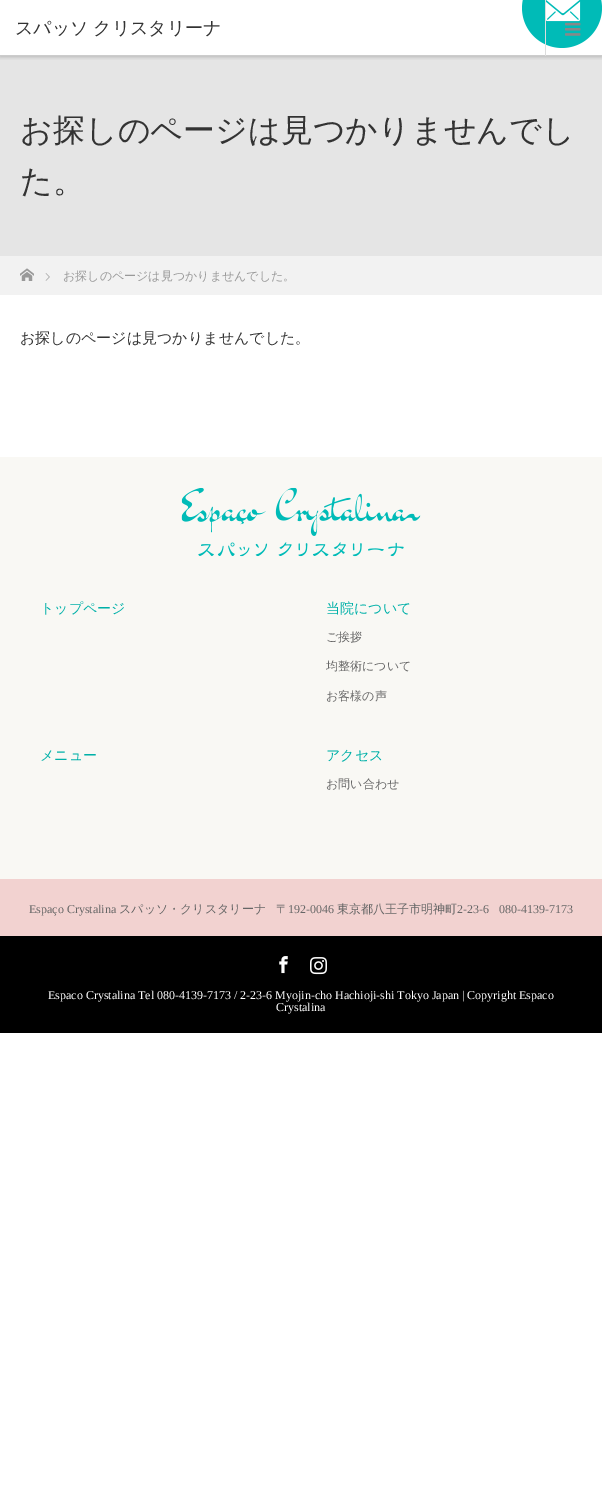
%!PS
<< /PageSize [602 1487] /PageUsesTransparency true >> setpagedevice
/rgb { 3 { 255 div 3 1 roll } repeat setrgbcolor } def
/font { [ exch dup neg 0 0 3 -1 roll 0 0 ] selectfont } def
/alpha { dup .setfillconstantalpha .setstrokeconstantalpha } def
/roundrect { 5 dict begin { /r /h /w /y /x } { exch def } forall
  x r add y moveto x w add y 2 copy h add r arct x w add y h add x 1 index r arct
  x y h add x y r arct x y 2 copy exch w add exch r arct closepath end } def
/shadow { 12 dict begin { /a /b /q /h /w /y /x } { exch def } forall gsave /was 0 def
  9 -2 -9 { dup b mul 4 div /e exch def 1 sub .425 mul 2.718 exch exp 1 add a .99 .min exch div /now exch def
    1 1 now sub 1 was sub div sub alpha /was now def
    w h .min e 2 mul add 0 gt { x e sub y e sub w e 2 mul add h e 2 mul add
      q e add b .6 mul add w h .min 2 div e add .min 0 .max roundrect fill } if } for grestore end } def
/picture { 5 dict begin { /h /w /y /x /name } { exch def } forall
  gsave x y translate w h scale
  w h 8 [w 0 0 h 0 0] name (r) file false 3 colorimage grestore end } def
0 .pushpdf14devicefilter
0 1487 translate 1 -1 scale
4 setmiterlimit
255 255 255 rgb
0 0 602 1487 rectfill
229 229 229 rgb
0 56 602 200 rectfill
gsave
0 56 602 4 rectclip
0 0 0 rgb
0 1 602 56 0 2 0.2 shadow
grestore
204 204 204 rgb
0 55 602 1 rectfill
(img/1.rgb) 522 0 80 48 picture
221 221 221 rgb
545 0 1 56 rectfill
(img/2.rgb) 565 22 16 14 picture
242 242 242 rgb
0 256 602 39 rectfill
(img/3.rgb) 20 268 14 13 picture
(img/4.rgb) 45 273 5 8 picture
249 248 244 rgb
0 457 602 422 rectfill
(img/5.rgb) 181 487 240 70 picture
242 210 208 rgb
0 879 602 57 rectfill
0 0 0 rgb
0 936 602 97 rectfill
(img/6.rgb) 279 956 9 18 picture
(img/7.rgb) 310 957 17 18 picture
/WenQuanYiZenHei-Medium 18 font
51 51 51 rgb
15 34 moveto -1 0 32 (スパッソ クリスタリーナ) widthshow
/WenQuanYiZenHei-Medium 32 font
20 141 moveto (お探しのページは見つかりませんでし) show
20 192 moveto (た。) show
/WenQuanYiZenHei-Medium 12 font
153 153 153 rgb
63 280 moveto (お探しのページは見つかりませんでした。) show
/WenQuanYiZenHei-Medium 15 font
51 51 51 rgb
20 343 moveto (お探しのページは見つかりませんでした。) show
/WenQuanYiZenHei-Medium 14 font
0 176 168 rgb
40 613 moveto (トップページ) show
326 613 moveto (当院について) show
/WenQuanYiZenHei-Medium 12 font
102 102 102 rgb
[
  [(ご挨拶) 326 641]
  [(均整術について) 326 670]
  [(お客様の声) 326 700]
] { aload pop moveto show } forall
/WenQuanYiZenHei-Medium 14 font
0 176 168 rgb
40 760 moveto (メニュー) show
326 760 moveto (アクセス) show
/WenQuanYiZenHei-Medium 12 font
102 102 102 rgb
326 788 moveto (お問い合わせ) show
/LiberationSerif-Regular 12 font
29 913 moveto (Espaço Crystalina) show
/WenQuanYiZenHei-Medium 12 font
119 913 moveto (スパッソ・クリスタリーナ) show
276 913 moveto (〒) show
/LiberationSerif-Regular 12 font
288 913 moveto (192-0046) show
/WenQuanYiZenHei-Medium 12 font
337 913 moveto (東京都八王子市明神町) show
/LiberationSerif-Regular 12 font
457 913 moveto (2-23-6) show
499 913 moveto (080-4139-7173) show
255 255 255 rgb
48 999 moveto (Espaco Crystalina Tel 080-4139-7173 / 2-23-6 Myojin-cho Hachioji-shi Tokyo Japan | Copyright Espaco) show
276 1011 moveto (Crystalina) show
.poppdf14devicefilter showpage
